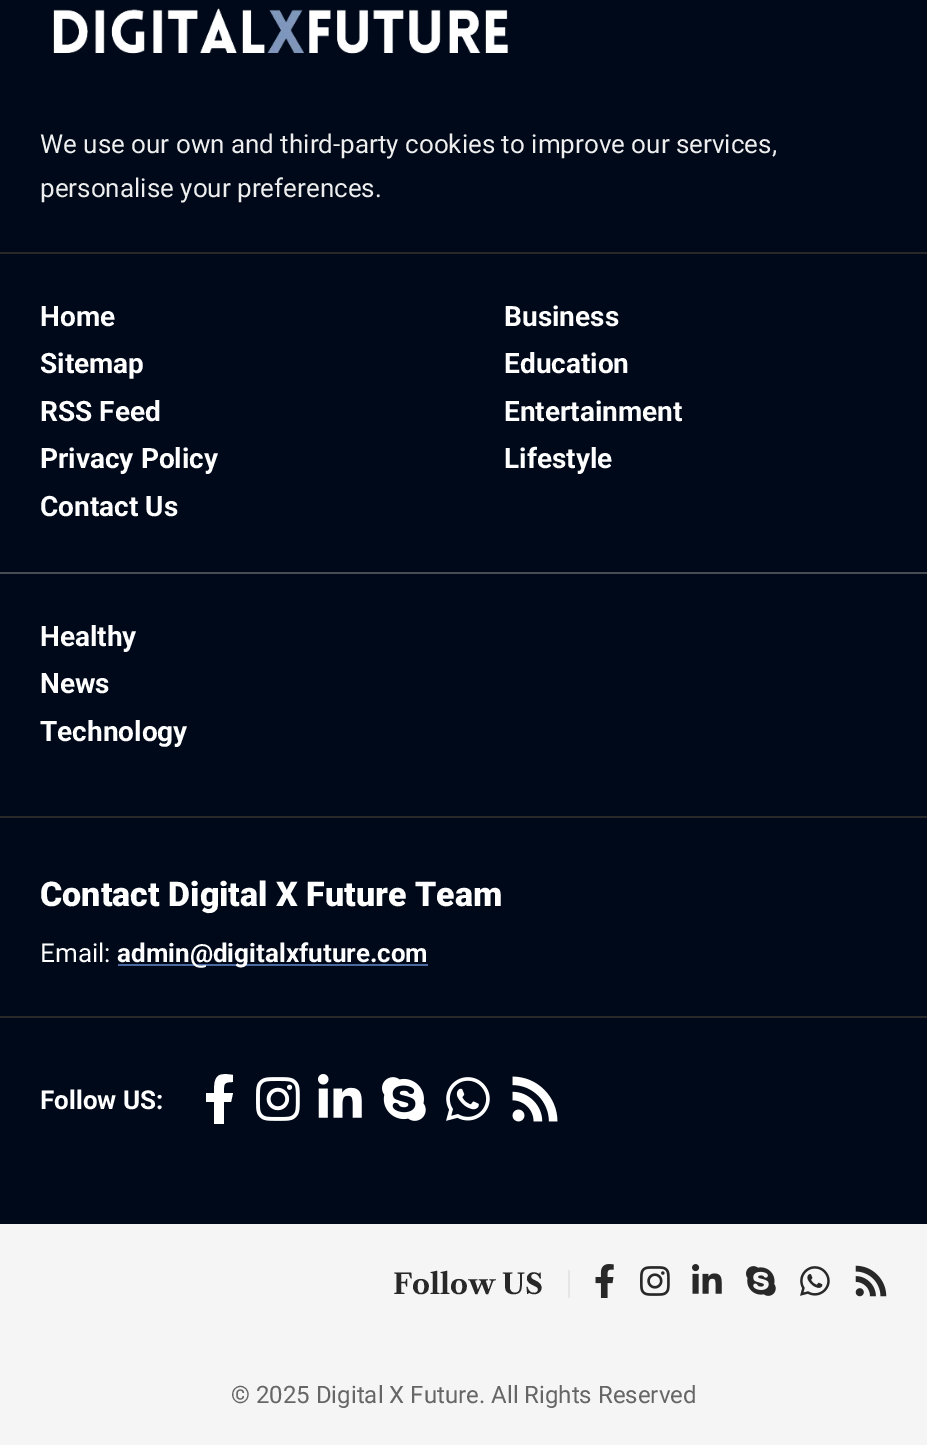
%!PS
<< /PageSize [927 1445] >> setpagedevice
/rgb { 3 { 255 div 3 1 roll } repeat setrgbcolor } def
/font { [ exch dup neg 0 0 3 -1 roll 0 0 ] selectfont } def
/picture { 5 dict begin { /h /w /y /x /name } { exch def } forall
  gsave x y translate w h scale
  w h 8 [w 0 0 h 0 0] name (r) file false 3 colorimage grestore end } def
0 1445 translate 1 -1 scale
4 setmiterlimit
245 245 245 rgb
0 0 927 1445 rectfill
[
  [0 0 927 1224 0 9 25]
  [0 816 927 2 40 40 40]
  [0 252 927 2 40 40 40]
] { aload pop rgb rectfill } forall
(img/1.rgb) 53 8 456 46 picture
[
  [0 572 927 2 72 77 84]
  [0 1016 927 2 40 40 40]
  [118 964 310 2 73 105 160]
] { aload pop rgb rectfill } forall
255 255 255 rgb
231 1102 moveto 233 1093 lineto 224 1093 lineto 224 1084 223 1082 233 1082 curveto 233 1075 lineto 216 1072 214 1077 214 1093 curveto 206 1093 lineto 206 1102 lineto 214 1102 lineto 214 1124 lineto 224 1124 lineto 224 1102 lineto closepath fill
(img/2.rgb) 256 1077 44 44 picture
(img/3.rgb) 318 1074 44 44 picture
(img/4.rgb) 382 1077 44 44 picture
(img/5.rgb) 446 1077 44 44 picture
(img/6.rgb) 512 1076 46 46 picture
229 229 229 rgb
568 1270 2 28 rectfill
(img/7.rgb) 595 1264 19 34 picture
(img/8.rgb) 640 1266 30 30 picture
(img/9.rgb) 692 1264 30 30 picture
(img/10.rgb) 746 1266 30 30 picture
(img/11.rgb) 800 1266 30 30 picture
(img/12.rgb) 855 1265 32 32 picture
/Roboto-Regular 26 font
238 238 238 rgb
40 153 moveto (We use our own and third-party cookies to improve our services,) show
40 197 moveto (personalise your preferences.) show
/Roboto-Bold 28 font
255 255 255 rgb
[
  [(Home) 40 326]
  [(Sitemap) 40 373]
  [(RSS Feed) 40 421]
  [(Privacy Policy) 40 468]
  [(Contact Us) 40 516]
  [(Business) 504 326]
  [(Education) 504 373]
  [(Entertainment) 504 421]
  [(Lifestyle) 504 468]
  [(Healthy) 40 646]
  [(News) 40 693]
  [(Technology) 40 741]
] { aload pop moveto show } forall
/Roboto-Black 34 font
40 906 moveto (Contact Digital X Future Team) show
/Roboto-Regular 26 font
40 962 moveto (Email:) show
/Roboto-Bold 26 font
117 962 moveto (admin@digitalxfuture.com) show
40 1109 moveto (Follow US:) show
/LibreCaslonText-Bold 28 font
40 40 40 rgb
393 1294 moveto (Follow US) show
/Roboto-Regular 24 font
102 102 102 rgb
231 1403 moveto (© 2025 Digital X Future. All Rights Reserved) show
showpage
